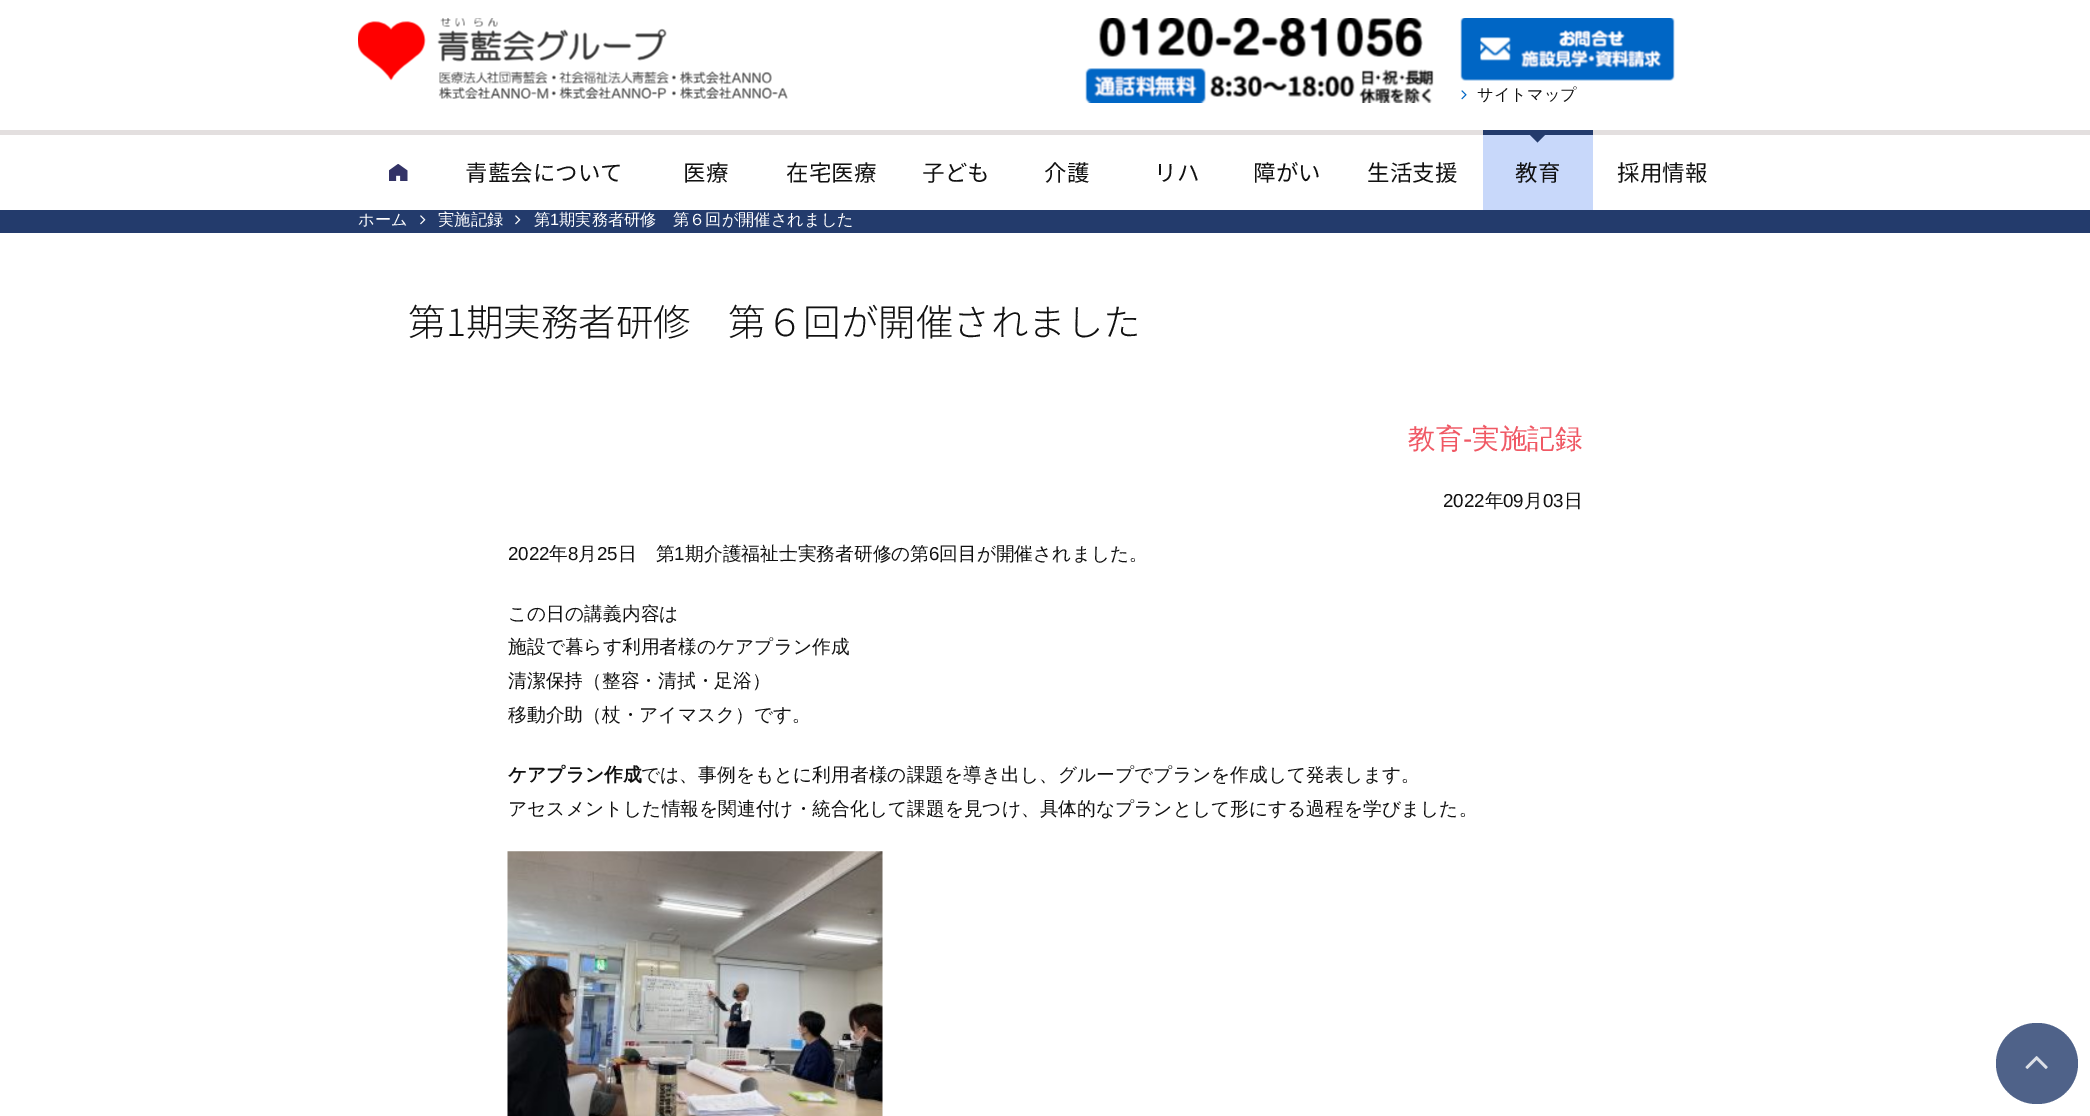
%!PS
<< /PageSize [2090 1116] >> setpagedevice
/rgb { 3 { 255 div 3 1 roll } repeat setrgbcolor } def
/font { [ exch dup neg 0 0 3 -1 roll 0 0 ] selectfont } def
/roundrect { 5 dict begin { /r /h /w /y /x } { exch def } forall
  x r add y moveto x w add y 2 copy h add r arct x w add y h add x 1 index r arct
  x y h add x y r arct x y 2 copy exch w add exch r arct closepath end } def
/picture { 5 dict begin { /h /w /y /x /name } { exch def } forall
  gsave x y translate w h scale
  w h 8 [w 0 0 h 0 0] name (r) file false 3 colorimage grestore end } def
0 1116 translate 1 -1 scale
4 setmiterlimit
255 255 255 rgb
0 0 2090 1116 rectfill
(img/1.rgb) 358 18 430 81 picture
(img/2.rgb) 1099 18 324 39 picture
(img/3.rgb) 1085 68 349 35 picture
(img/4.rgb) 1460 18 215 63 picture
(img/5.rgb) 1461 90 6 10 picture
227 223 223 rgb
0 130 2090 5 rectfill
(img/6.rgb) 389 164 19 17 picture
200 216 250 rgb
1483 135 110 75 rectfill
35 59 108 rgb
1483 130 110 5 rectfill
1530 135 moveto 1545 135 lineto 1537.5 142.5 lineto closepath fill
0 210 2090 23 rectfill
(img/7.rgb) 420 215 6 10 picture
(img/7.rgb) 515 215 6 10 picture
(img/8.rgb) 507 851 376 265 picture
79 98 137 rgb
1996 1023 82 81 40.5 roundrect fill
(img/9.rgb) 2025 1056 23 13 picture
/WenQuanYiZenHei-Medium 16.25 font
17 17 17 rgb
1477 100 moveto (サイトマップ) show
/NotoSansCJKJP-Regular 22.5 font
[
  [(青藍会について) 465 181]
  [(医療) 683 181]
  [(在宅医療) 786 181]
  [(子ども) 922 181]
  [(介護) 1044 181]
  [(リハ) 1154 181]
  [(障がい) 1253 181]
  [(生活支援) 1367 181]
  [(教育) 1515 181]
  [(採用情報) 1617 181]
] { aload pop moveto show } forall
/WenQuanYiZenHei-Medium 16.25 font
255 255 255 rgb
[
  [(ホーム) 358 225]
  [(実施記録) 438 225]
  [(第) 534 225]
] { aload pop moveto show } forall
/LiberationSans-Regular 16.25 font
550 225 moveto (1) show
/WenQuanYiZenHei-Medium 16.25 font
559 225 moveto (期実務者研修　第６回が開催されました) show
/NotoSansCJKJP-Light 37.5 font
17 17 17 rgb
408 336 moveto (第1期実務者研修) show
728 336 moveto (第６回が開催されました) show
/WenQuanYiZenHei-Medium 27.5 font
240 88 100 rgb
1408 448 moveto (教育) show
/LiberationSans-Regular 27.5 font
1463 448 moveto (-) show
/WenQuanYiZenHei-Medium 27.5 font
1472 448 moveto (実施記録) show
/LiberationSans-Regular 18.75 font
17 17 17 rgb
1443 507 moveto (2022) show
/WenQuanYiZenHei-Medium 18.75 font
1485 507 moveto (年) show
/LiberationSans-Regular 18.75 font
1503 507 moveto (09) show
/WenQuanYiZenHei-Medium 18.75 font
1524 507 moveto (月) show
/LiberationSans-Regular 18.75 font
1543 507 moveto (03) show
/WenQuanYiZenHei-Medium 18.75 font
1564 507 moveto (日) show
/LiberationSans-Regular 18.75 font
508 560 moveto (2022) show
/WenQuanYiZenHei-Medium 18.75 font
549 560 moveto (年) show
/LiberationSans-Regular 18.75 font
568 560 moveto (8) show
/WenQuanYiZenHei-Medium 18.75 font
578 560 moveto (月) show
/LiberationSans-Regular 18.75 font
597 560 moveto (25) show
/WenQuanYiZenHei-Medium 18.75 font
618 560 moveto (日　第) show
/LiberationSans-Regular 18.75 font
674 560 moveto (1) show
/WenQuanYiZenHei-Medium 18.75 font
685 560 moveto (期介護福祉士実務者研修の第) show
/LiberationSans-Regular 18.75 font
929 560 moveto (6) show
/WenQuanYiZenHei-Medium 18.75 font
[
  [(回目が開催されました。) 939 560]
  [(この日の講義内容は) 508 620]
  [(施設で暮らす利用者様のケアプラン作成) 508 653]
  [(清潔保持（整容・清拭・足浴）) 508 687]
  [(移動介助（杖・アイマスク）です。) 508 721]
] { aload pop moveto show } forall
/WenQuanYiZenHei-Bold 18.75 font
508 781 moveto (ケアプラン作成) show
/WenQuanYiZenHei-Medium 18.75 font
641 781 moveto (では、事例をもとに利用者様の課題を導き出し、グループでプランを作成して発表します。) show
508 815 moveto (アセスメントした情報を関連付け・統合化して課題を見つけ、具体的なプランとして形にする過程を学びました。) show
showpage
